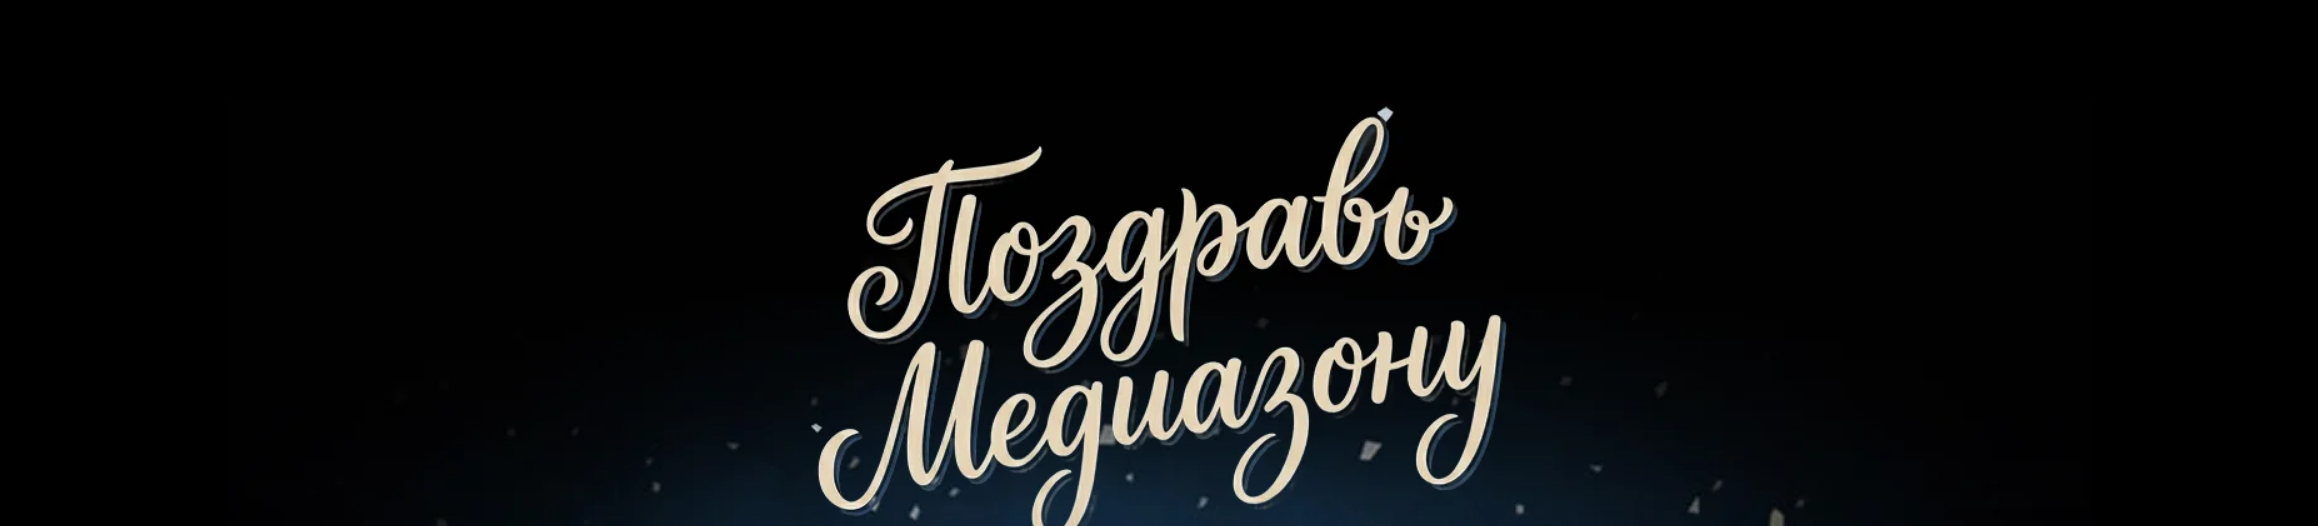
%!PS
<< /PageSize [2318 526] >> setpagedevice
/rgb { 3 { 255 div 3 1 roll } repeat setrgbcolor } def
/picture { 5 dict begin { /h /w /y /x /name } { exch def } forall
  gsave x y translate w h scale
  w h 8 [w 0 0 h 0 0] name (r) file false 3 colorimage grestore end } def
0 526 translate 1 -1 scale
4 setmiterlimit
0 0 0 rgb
0 0 2318 526 rectfill
(img/1.rgb) 229 100 1862 426 picture
showpage
